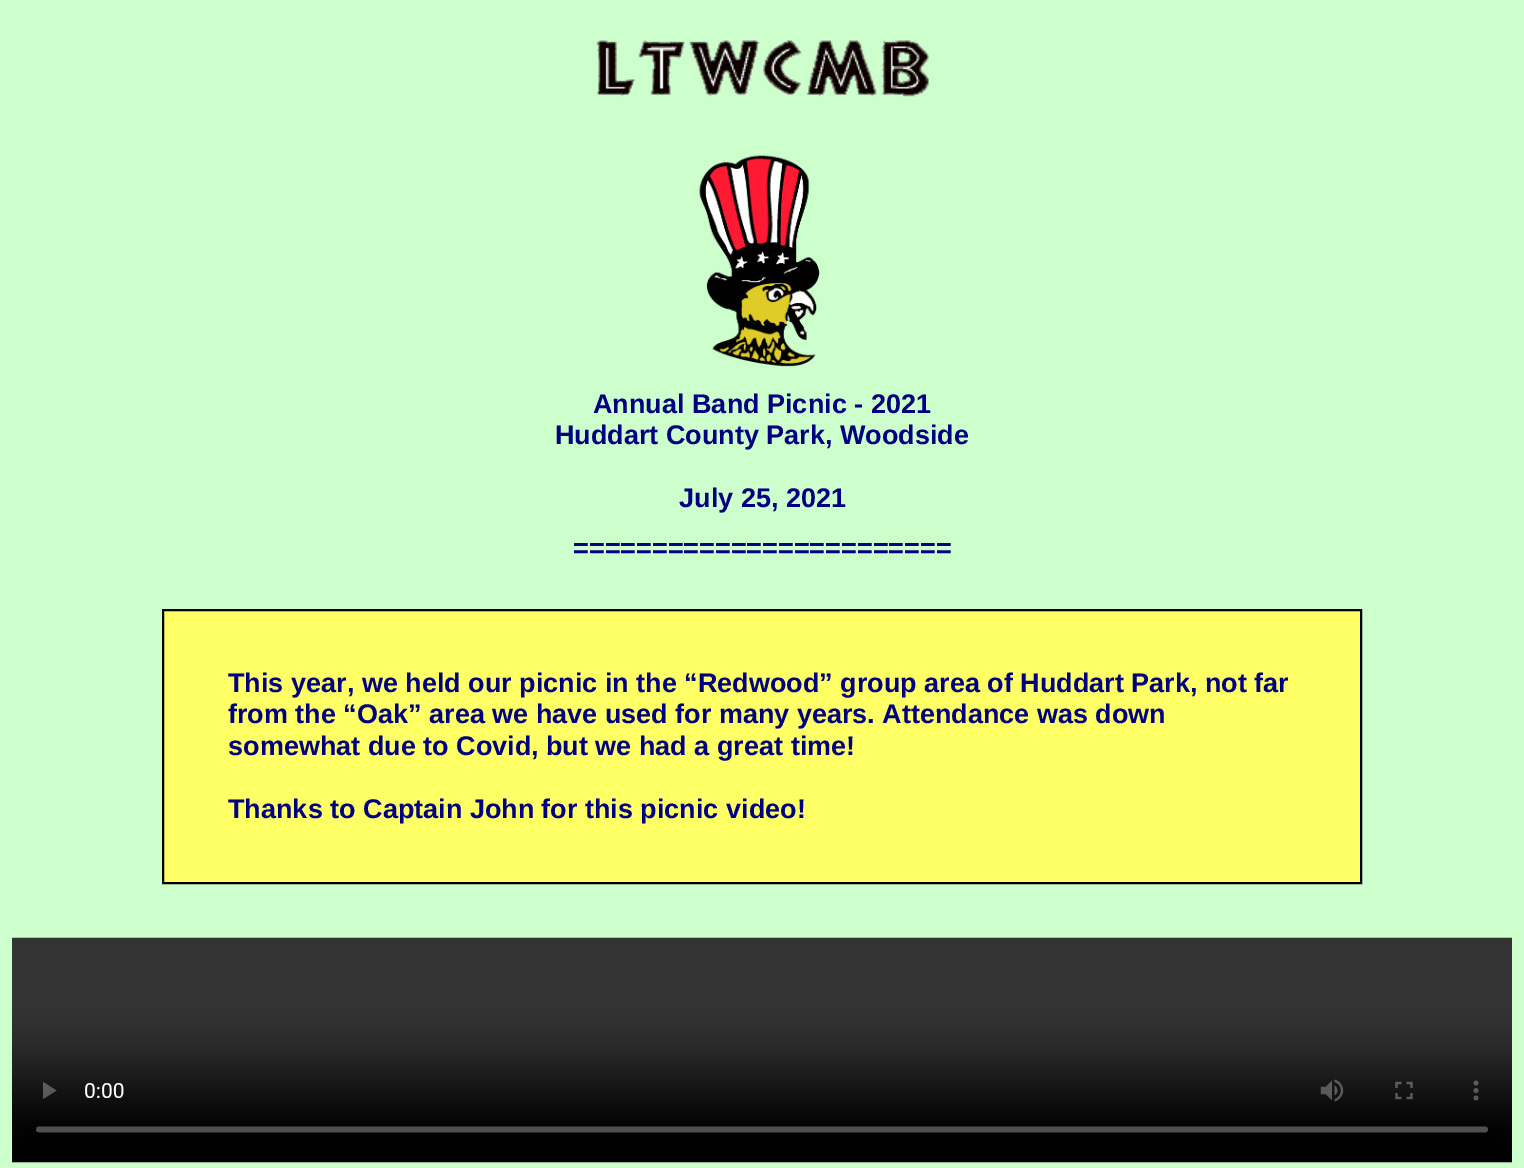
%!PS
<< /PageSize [1524 1168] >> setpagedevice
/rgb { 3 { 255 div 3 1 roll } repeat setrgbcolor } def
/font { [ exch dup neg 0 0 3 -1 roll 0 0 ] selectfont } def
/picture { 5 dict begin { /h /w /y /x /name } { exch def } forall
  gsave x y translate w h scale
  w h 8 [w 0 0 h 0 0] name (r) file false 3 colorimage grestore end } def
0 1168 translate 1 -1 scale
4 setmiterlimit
204 255 204 rgb
0 0 1524 1168 rectfill
(img/1.rgb) 596 40 333 57 picture
(img/2.rgb) 699 155 121 212 picture
255 255 102 rgb
163 610 moveto 1361 610 lineto 1361 883 lineto 163 883 lineto closepath gsave fill grestore
0 0 0 rgb
2 setlinewidth
stroke
(img/3.rgb) 12 937 1500 226 picture
/LiberationSans-Bold 27 font
0 0 128 rgb
[
  [(Annual Band Picnic - 2021) 593 413]
  [(Huddart County Park, Woodside) 555 444]
  [(July 25, 2021) 679 507]
  [(========================) 573 557]
  [(This year, we held our picnic in the “Redwood” group area of Huddart Park, not far) 228 692]
  [(from the “Oak” area we have used for many years. Attendance was down) 228 723]
  [(somewhat due to Covid, but we had a great time!) 228 755]
  [(Thanks to Captain John for this picnic video!) 228 818]
] { aload pop moveto show } forall
showpage
